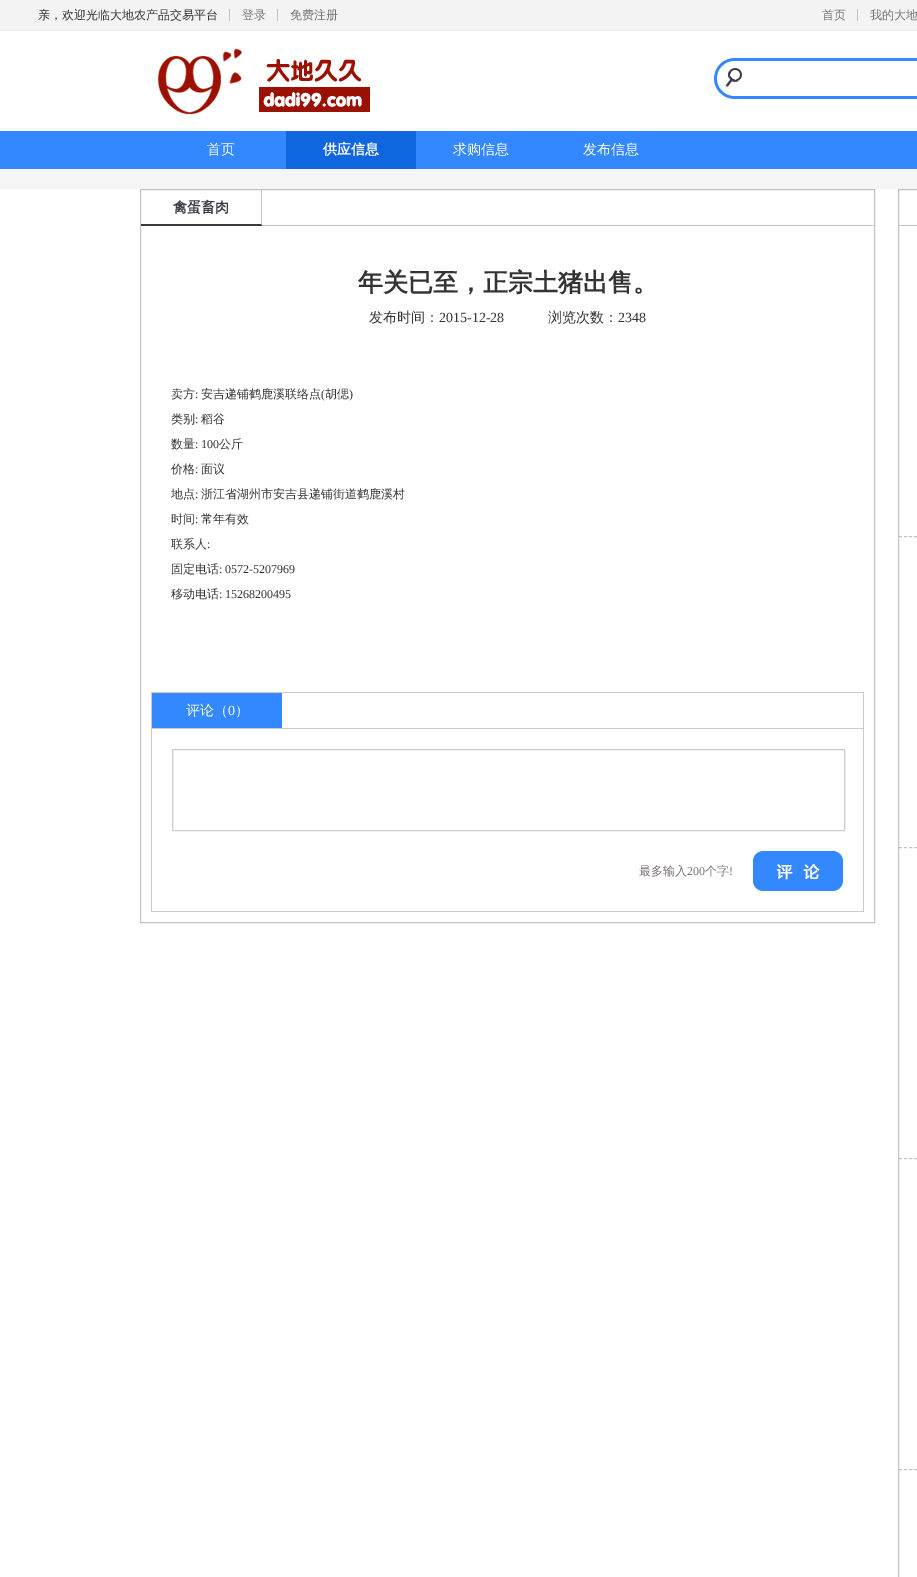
%!PS
<< /PageSize [917 1577] >> setpagedevice
/rgb { 3 { 255 div 3 1 roll } repeat setrgbcolor } def
/font { [ exch dup neg 0 0 3 -1 roll 0 0 ] selectfont } def
/picture { 5 dict begin { /h /w /y /x /name } { exch def } forall
  gsave x y translate w h scale
  w h 8 [w 0 0 h 0 0] name (r) file false 3 colorimage grestore end } def
0 1577 translate 1 -1 scale
4 setmiterlimit
255 255 255 rgb
0 0 917 1577 rectfill
[
  [0 0 917 30 243 243 243]
  [0 30 917 1 234 234 234]
  [229 9 1 12 191 191 191]
  [277 9 1 12 191 191 191]
  [857 9 1 12 191 191 191]
] { aload pop rgb rectfill } forall
(img/1.rgb) 156 48 214 70 picture
(img/2.rgb) 714 58 203 41 picture
(img/3.rgb) 725 68 17 19 picture
[
  [0 131 917 38 51 136 255]
  [286 131 130 38 16 102 223]
  [0 169 917 20 245 245 245]
] { aload pop rgb rectfill } forall
195 195 198 rgb
140.5 189.5 734 733 rectstroke
261 225 613 1 rectfill
262 190 moveto 262 226 lineto 261 224 lineto 261 190 lineto closepath fill
57 57 65 rgb
262 226 moveto 141 226 lineto 141 224 lineto 261 224 lineto closepath fill
[
  [151 692 713 1 204 204 204]
  [863 692 1 220 204 204 204]
  [151 692 1 220 204 204 204]
  [152 728 711 1 204 204 204]
  [152 693 130 35 51 136 255]
] { aload pop rgb rectfill } forall
204 204 204 rgb
172.5 749.5 672 81 rectstroke
152 911 711 1 rectfill
(img/4.rgb) 753 851 90 40 picture
195 195 198 rgb
898.5 189.5 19 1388 rectstroke
899 225 18 1 rectfill
[3 2.04] 0 setdash
899 536.5 moveto 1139 536.5 lineto stroke
899 847.5 moveto 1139 847.5 lineto stroke
899 1158.5 moveto 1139 1158.5 lineto stroke
899 1469.5 moveto 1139 1469.5 lineto stroke
/WenQuanYiZenHei-Medium 12 font
51 51 51 rgb
38 19 moveto (亲，欢迎光临大地农产品交易平台) show
120 113 113 rgb
[
  [(登录) 242 19]
  [(免费注册) 290 19]
  [(首页) 822 19]
  [(我的大地) 870 19]
] { aload pop moveto show } forall
/WenQuanYiZenHei-Medium 14 font
255 255 255 rgb
207 154 moveto (首页) show
/WenQuanYiZenHei-Bold 14 font
323 154 moveto (供应信息) show
/WenQuanYiZenHei-Medium 14 font
453 154 moveto (求购信息) show
583 154 moveto (发布信息) show
/WenQuanYiZenHei-Bold 14 font
56 57 65 rgb
173 212 moveto (禽蛋畜肉) show
/WenQuanYiZenHei-Bold 25 font
51 51 51 rgb
358 291 moveto (年关已至，正宗土猪出售。) show
/WenQuanYiZenHei-Medium 14 font
369 322 moveto (发布时间：) show
/LiberationSerif-Regular 14 font
439 322 moveto (2015-12-28) show
/WenQuanYiZenHei-Medium 14 font
548 322 moveto (浏览次数：) show
/LiberationSerif-Regular 14 font
618 322 moveto (2348) show
/WenQuanYiZenHei-Medium 12 font
171 398 moveto (卖方) show
/LiberationSerif-Regular 12 font
195 398 moveto (:) show
/WenQuanYiZenHei-Medium 12 font
201 398 moveto (安吉递铺鹤鹿溪联络点) show
/LiberationSerif-Regular 12 font
321 398 moveto (\() show
/WenQuanYiZenHei-Medium 12 font
325 398 moveto (胡偲) show
/LiberationSerif-Regular 12 font
349 398 moveto (\)) show
/WenQuanYiZenHei-Medium 12 font
171 423 moveto (类别) show
/LiberationSerif-Regular 12 font
195 423 moveto (:) show
/WenQuanYiZenHei-Medium 12 font
201 423 moveto (稻谷) show
171 448 moveto (数量) show
/LiberationSerif-Regular 12 font
195 448 moveto (: 100) show
/WenQuanYiZenHei-Medium 12 font
219 448 moveto (公斤) show
171 473 moveto (价格) show
/LiberationSerif-Regular 12 font
195 473 moveto (:) show
/WenQuanYiZenHei-Medium 12 font
201 473 moveto (面议) show
171 498 moveto (地点) show
/LiberationSerif-Regular 12 font
195 498 moveto (:) show
/WenQuanYiZenHei-Medium 12 font
201 498 moveto (浙江省湖州市安吉县递铺街道鹤鹿溪村) show
171 523 moveto (时间) show
/LiberationSerif-Regular 12 font
195 523 moveto (:) show
/WenQuanYiZenHei-Medium 12 font
201 523 moveto (常年有效) show
171 548 moveto (联系人) show
/LiberationSerif-Regular 12 font
207 548 moveto (:) show
/WenQuanYiZenHei-Medium 12 font
171 573 moveto (固定电话) show
/LiberationSerif-Regular 12 font
219 573 moveto (: 0572-5207969) show
/WenQuanYiZenHei-Medium 12 font
171 598 moveto (移动电话) show
/LiberationSerif-Regular 12 font
219 598 moveto (: 15268200495) show
/WenQuanYiZenHei-Medium 14 font
255 255 255 rgb
186 715 moveto (评论（) show
/LiberationSerif-Regular 14 font
228 715 moveto (0) show
/WenQuanYiZenHei-Medium 14 font
235 715 moveto (）) show
/WenQuanYiZenHei-Medium 12 font
120 113 113 rgb
639 875 moveto (最多输入) show
/LiberationSerif-Regular 12 font
687 875 moveto (200) show
/WenQuanYiZenHei-Medium 12 font
705 875 moveto (个字) show
/LiberationSerif-Regular 12 font
729 875 moveto (!) show
showpage
